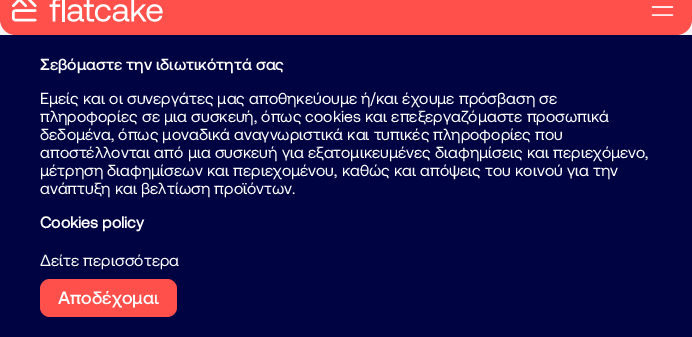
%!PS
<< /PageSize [692 337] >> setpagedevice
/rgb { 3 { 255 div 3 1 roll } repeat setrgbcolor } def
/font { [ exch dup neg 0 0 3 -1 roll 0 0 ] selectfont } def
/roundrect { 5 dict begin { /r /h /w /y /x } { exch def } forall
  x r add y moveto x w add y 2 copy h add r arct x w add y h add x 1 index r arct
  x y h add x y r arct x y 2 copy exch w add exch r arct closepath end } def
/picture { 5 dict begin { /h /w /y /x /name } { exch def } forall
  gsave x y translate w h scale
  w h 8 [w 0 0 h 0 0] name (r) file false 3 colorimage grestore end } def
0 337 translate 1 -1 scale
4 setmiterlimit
245 245 245 rgb
0 0 692 337 rectfill
255 80 75 rgb
0 -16 moveto 692 -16 lineto 692 19 lineto 692 28 685 35 676 35 curveto 16 35 lineto 7 35 0 28 0 19 curveto closepath fill
(img/1.rgb) 12 0 151 22 picture
(img/2.rgb) 651 6 23 10 picture
0 3 66 rgb
0 35 692 302 rectfill
255 80 75 rgb
40 279 137 38 10 roundrect fill
/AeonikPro-Medium 16 font
255 255 255 rgb
40 70 moveto (Σεβόμαστε την ιδιωτικότητά σας) show
/AeonikPro-Regular 16 font
[
  [(Εμείς και οι συνεργάτες μας αποθηκεύουμε ή/και έχουμε πρόσβαση σε) 40 104]
  [(πληροφορίες σε μια συσκευή, όπως cookies και επεξεργαζόμαστε προσωπικά) 40 122]
  [(δεδομένα, όπως μοναδικά αναγνωριστικά και τυπικές πληροφορίες που) 40 140]
  [(αποστέλλονται από μια συσκευή για εξατομικευμένες διαφημίσεις και περιεχόμενο,) 40 158]
  [(μέτρηση διαφημίσεων και περιεχομένου, καθώς και απόψεις του κοινού για την) 40 176]
  [(ανάπτυξη και βελτίωση προϊόντων.) 40 194]
] { aload pop moveto show } forall
/AeonikPro-Bold 16 font
40 228 moveto (Cookies policy) show
/AeonikPro-Regular 16 font
40 266 moveto (Δείτε περισσότερα) show
/AeonikPro-Medium 18 font
58 304 moveto (Αποδέχομαι) show
showpage
